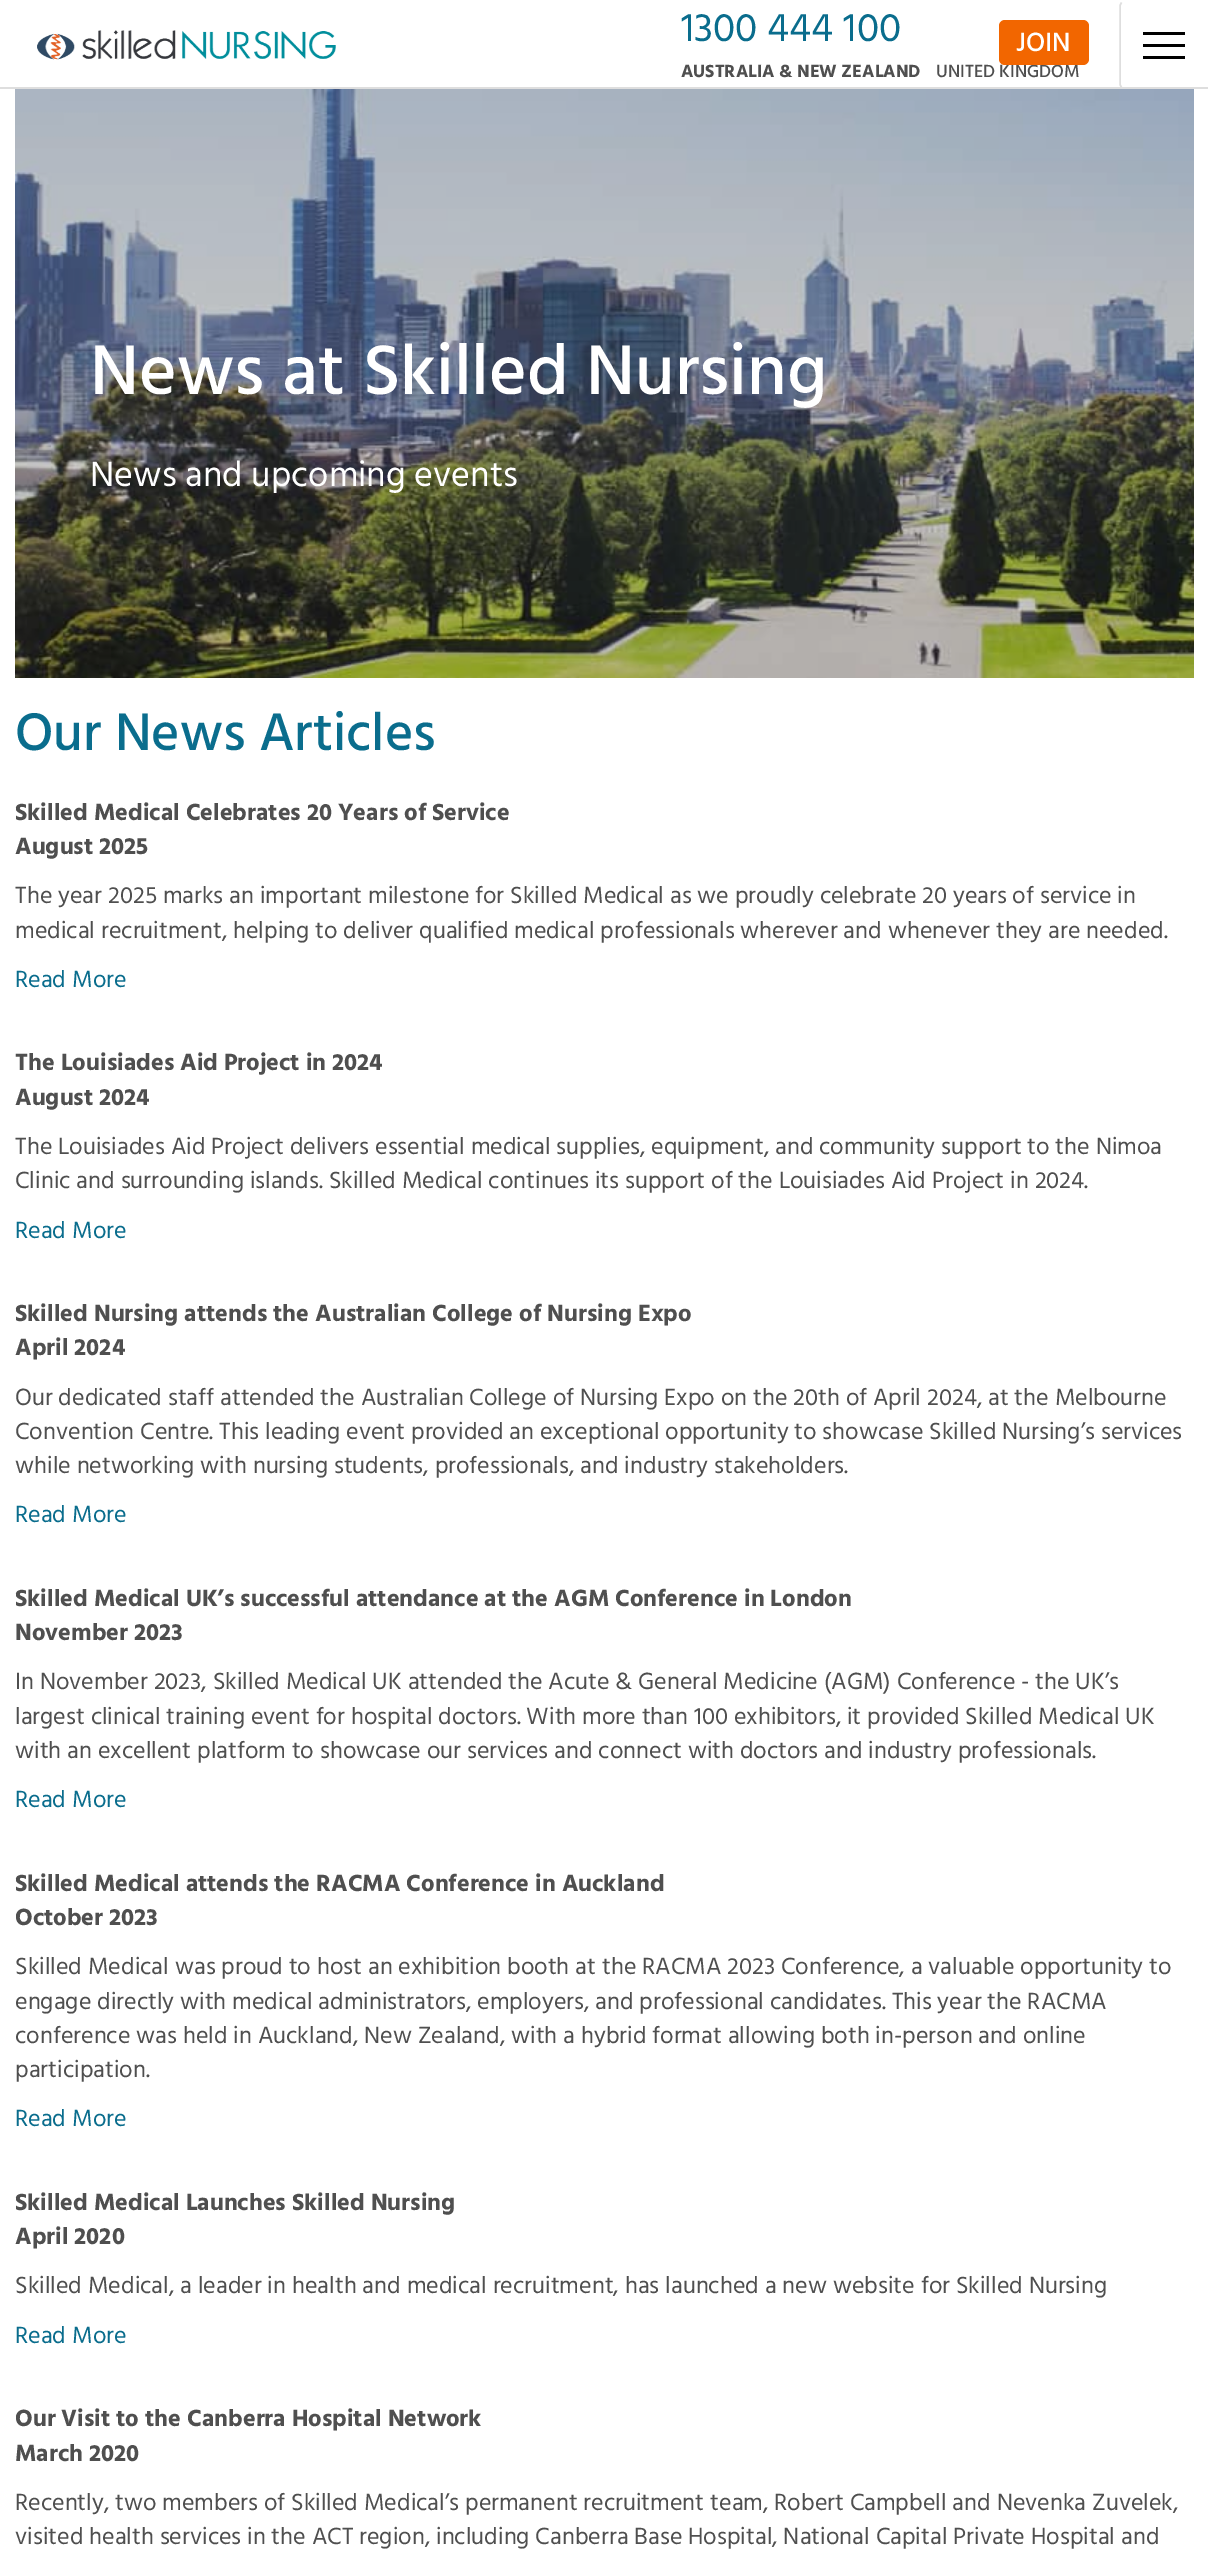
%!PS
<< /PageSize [1208 2555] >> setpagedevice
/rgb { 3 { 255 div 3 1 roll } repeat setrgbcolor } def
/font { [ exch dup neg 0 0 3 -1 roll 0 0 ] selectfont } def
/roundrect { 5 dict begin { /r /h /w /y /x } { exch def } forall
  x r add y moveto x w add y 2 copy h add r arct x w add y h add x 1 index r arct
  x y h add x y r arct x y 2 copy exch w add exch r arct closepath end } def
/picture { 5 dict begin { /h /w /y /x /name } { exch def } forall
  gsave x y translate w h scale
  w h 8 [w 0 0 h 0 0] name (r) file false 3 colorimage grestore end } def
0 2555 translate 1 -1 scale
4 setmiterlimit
255 255 255 rgb
0 0 1208 2555 rectfill
222 222 222 rgb
0 87 1208 2 rectfill
(img/1.rgb) 37 30 299 30 picture
1.5 setlinewidth
1121.5 87.5 moveto 1120 84.5 lineto 1120 5.5 lineto 1121.5 2.5 lineto stroke
[
  [1143 32 42 3 0 0 0]
  [1143 44 42 3 0 0 0]
  [1143 56 42 3 0 0 0]
] { aload pop rgb rectfill } forall
(img/2.rgb) 15 89 1179 589 picture
/Hind-Regular 40.75 font
10 109 141 rgb
681 41 moveto (1300 444 100) show
/Hind-Bold 18 font
79 79 79 rgb
681 77 moveto (AUSTRALIA & NEW ZEALAND) show
/Hind-Medium 18 font
936 77 moveto (UNITED KINGDOM) show
242 102 0 rgb
999 20 90 45 6 roundrect fill
/Hind-Medium 27 font
255 255 255 rgb
1016 51 moveto (JOIN) show
/Hind-Medium 72 font
90 394 moveto (News at Skilled Nursing) show
/Hind-Regular 36 font
90 486 moveto (News and upcoming events) show
/Hind-Medium 54 font
10 109 141 rgb
15 750 moveto (Our News Articles) show
/Hind-Bold 24 font
79 79 79 rgb
15 820 moveto (Skilled Medical Celebrates 20 Years of Service) show
15 854 moveto (August 2025) show
/Hind-Regular 24 font
15 903 moveto (The year 2025 marks an important milestone for Skilled Medical as we proudly celebrate 20 years of service in) show
15 938 moveto (medical recruitment, helping to deliver qualified medical professionals wherever and whenever they are needed.) show
10 109 141 rgb
15 987 moveto (Read More) show
/Hind-Bold 24 font
79 79 79 rgb
15 1070 moveto (The Louisiades Aid Project in 2024) show
15 1105 moveto (August 2024) show
/Hind-Regular 24 font
15 1154 moveto (The Louisiades Aid Project delivers essential medical supplies, equipment, and community support to the Nimoa) show
15 1188 moveto (Clinic and surrounding islands. Skilled Medical continues its support of the Louisiades Aid Project in 2024.) show
10 109 141 rgb
15 1238 moveto (Read More) show
/Hind-Bold 24 font
79 79 79 rgb
15 1321 moveto (Skilled Nursing attends the Australian College of Nursing Expo) show
15 1355 moveto (April 2024) show
/Hind-Regular 24 font
[
  [(Our dedicated staff attended the Australian College of Nursing Expo on the 20th of April 2024, at the Melbourne) 15 1405]
  [(Convention Centre. This leading event provided an exceptional opportunity to showcase Skilled Nursing’s services) 15 1439]
  [(while networking with nursing students, professionals, and industry stakeholders.) 15 1473]
] { aload pop moveto show } forall
10 109 141 rgb
15 1522 moveto (Read More) show
/Hind-Bold 24 font
79 79 79 rgb
15 1606 moveto (Skilled Medical UK’s successful attendance at the AGM Conference in London) show
15 1640 moveto (November 2023) show
/Hind-Regular 24 font
[
  [(In November 2023, Skilled Medical UK attended the Acute & General Medicine \(AGM\) Conference - the UK’s) 15 1689]
  [(largest clinical training event for hospital doctors. With more than 100 exhibitors, it provided Skilled Medical UK) 15 1724]
  [(with an excellent platform to showcase our services and connect with doctors and industry professionals.) 15 1758]
] { aload pop moveto show } forall
10 109 141 rgb
15 1807 moveto (Read More) show
/Hind-Bold 24 font
79 79 79 rgb
15 1891 moveto (Skilled Medical attends the RACMA Conference in Auckland) show
15 1925 moveto (October 2023) show
/Hind-Regular 24 font
[
  [(Skilled Medical was proud to host an exhibition booth at the RACMA 2023 Conference, a valuable opportunity to) 15 1974]
  [(engage directly with medical administrators, employers, and professional candidates. This year the RACMA) 15 2009]
  [(conference was held in Auckland, New Zealand, with a hybrid format allowing both in-person and online) 15 2043]
  [(participation.) 15 2077]
] { aload pop moveto show } forall
10 109 141 rgb
15 2126 moveto (Read More) show
/Hind-Bold 24 font
79 79 79 rgb
15 2210 moveto (Skilled Medical Launches Skilled Nursing) show
15 2244 moveto (April 2020) show
/Hind-Regular 24 font
15 2293 moveto (Skilled Medical, a leader in health and medical recruitment, has launched a new website for Skilled Nursing) show
10 109 141 rgb
15 2343 moveto (Read More) show
/Hind-Bold 24 font
79 79 79 rgb
15 2426 moveto (Our Visit to the Canberra Hospital Network) show
15 2461 moveto (March 2020) show
/Hind-Regular 24 font
15 2510 moveto (Recently, two members of Skilled Medical’s permanent recruitment team, Robert Campbell and Nevenka Zuvelek,) show
15 2544 moveto (visited health services in the ACT region, including Canberra Base Hospital, National Capital Private Hospital and) show
showpage
